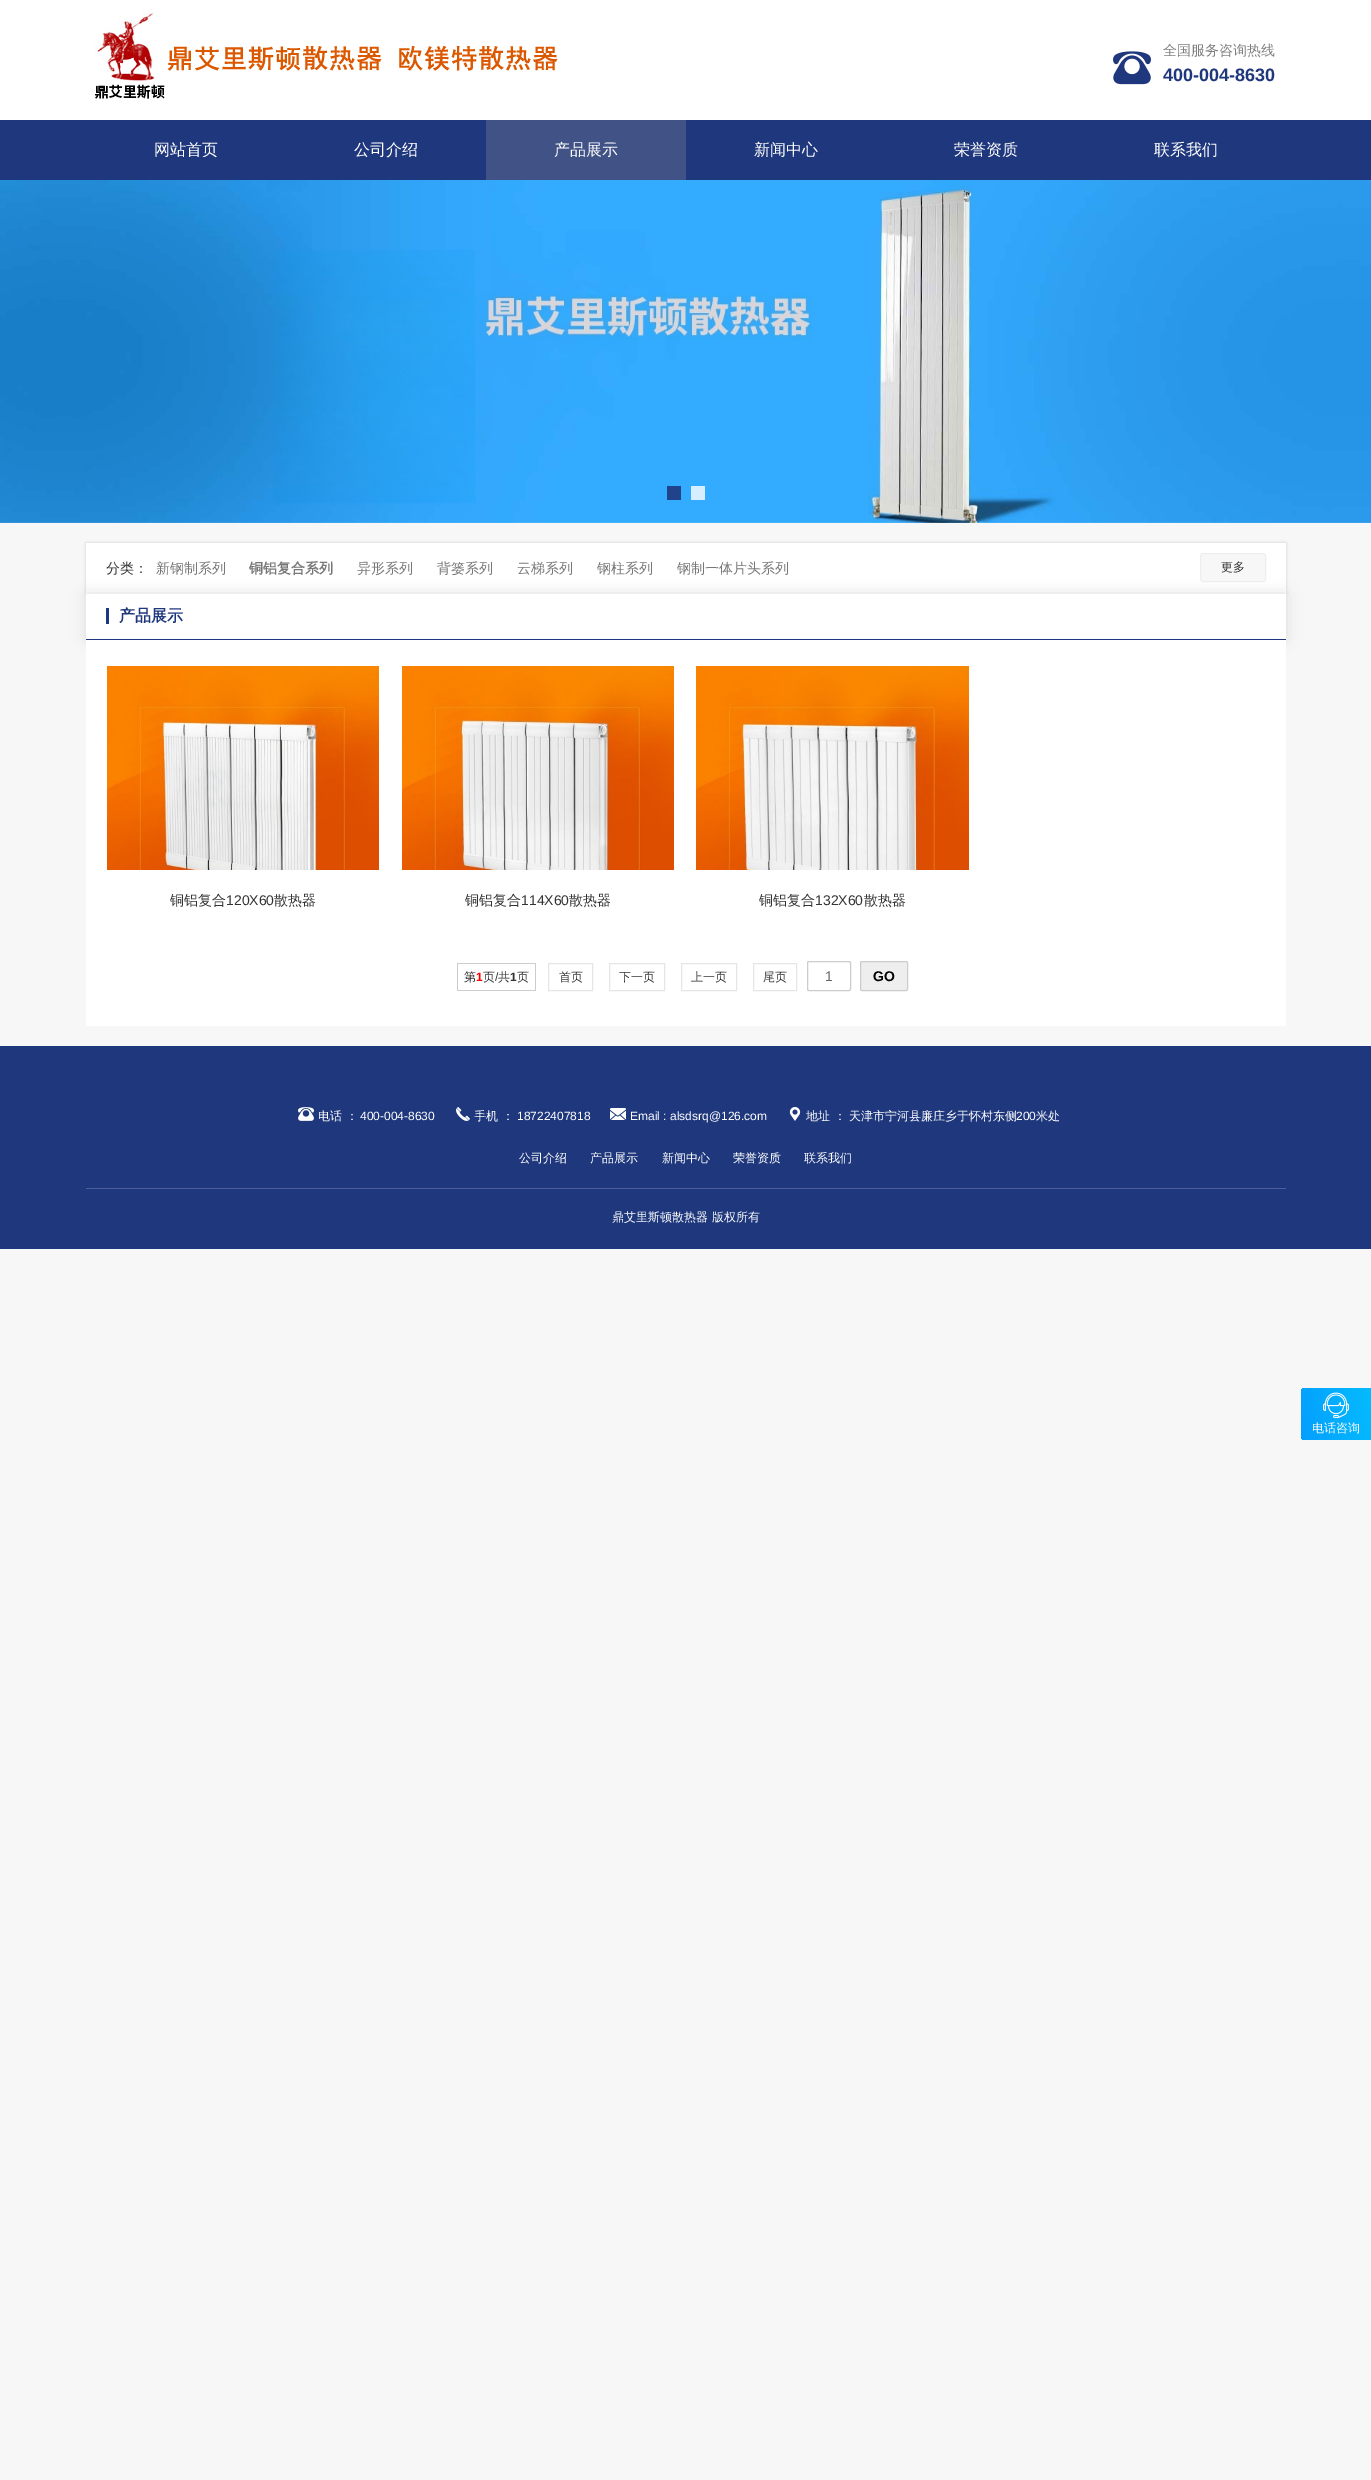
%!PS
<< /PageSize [1371 2480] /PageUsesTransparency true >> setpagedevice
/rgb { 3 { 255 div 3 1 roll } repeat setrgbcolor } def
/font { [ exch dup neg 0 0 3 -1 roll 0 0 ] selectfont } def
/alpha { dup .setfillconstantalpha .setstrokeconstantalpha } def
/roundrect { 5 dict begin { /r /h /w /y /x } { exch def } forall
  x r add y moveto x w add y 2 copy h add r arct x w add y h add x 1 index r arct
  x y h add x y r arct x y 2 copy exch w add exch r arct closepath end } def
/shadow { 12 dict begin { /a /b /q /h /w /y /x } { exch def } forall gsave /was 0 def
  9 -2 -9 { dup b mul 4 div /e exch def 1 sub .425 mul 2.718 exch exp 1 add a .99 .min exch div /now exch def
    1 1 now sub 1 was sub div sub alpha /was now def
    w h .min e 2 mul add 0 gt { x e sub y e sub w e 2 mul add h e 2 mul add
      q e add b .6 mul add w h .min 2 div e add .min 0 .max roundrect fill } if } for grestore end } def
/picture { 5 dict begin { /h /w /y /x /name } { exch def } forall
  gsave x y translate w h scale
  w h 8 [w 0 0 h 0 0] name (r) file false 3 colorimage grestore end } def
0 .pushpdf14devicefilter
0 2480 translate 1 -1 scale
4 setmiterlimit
247 247 247 rgb
0 0 1371 2480 rectfill
255 255 255 rgb
0 0 1371 120 rectfill
(img/1.rgb) 94 9 464 90 picture
(img/2.rgb) 1113 51 38 34 picture
31 55 124 rgb
0 120 1371 60 rectfill
64 82 134 rgb
486 120 200 60 rectfill
(img/3.rgb) 0 180 1371 343 picture
33 67 137 rgb
667 486 14 14 rectfill
214 238 255 rgb
691 486 14 14 rectfill
0 0 0 rgb
86 543 1200 51 0 1.5 0.15 shadow
255 255 255 rgb
86 543 1200 50 rectfill
218 218 218 rgb
86 594 1200 45 0 7.5 1 shadow
238 238 238 rgb
86 593 1200 1 rectfill
247 247 247 rgb
1200.5 553.5 65 28 2.5 roundrect gsave fill grestore
238 238 238 rgb
stroke
[
  [86 594 1200 45 255 255 255]
  [106 608 3 16 31 55 124]
  [86 640 1200 386 255 255 255]
  [86 639 1200 1 31 55 124]
] { aload pop rgb rectfill } forall
(img/4.rgb) 107 666 272 204 picture
(img/5.rgb) 402 666 272 204 picture
(img/6.rgb) 696 666 273 204 picture
[
  [457 990 60 1 204 204 204]
  [457 963 79 1 204 204 204]
  [457 963 1 28 204 204 204]
  [535 963 1 28 204 204 204]
  [517 990 19 1 204 204 204]
] { aload pop rgb rectfill } forall
230 230 230 rgb
548.5 963.5 44 27 rectstroke
609.5 963.5 55 27 rectstroke
681.5 963.5 55 27 rectstroke
753.5 963.5 43 27 rectstroke
204 204 204 rgb
807.5 961.5 43 29 1.5 roundrect stroke
238 238 238 rgb
860.5 961.5 47 29 1.5 roundrect gsave fill grestore
204 204 204 rgb
stroke
31 55 124 rgb
0 1046 1371 203 rectfill
(img/7.rgb) 298 1107 16 14 picture
(img/8.rgb) 456 1107 14 14 picture
(img/9.rgb) 610 1108 16 12 picture
(img/10.rgb) 789 1107 12 14 picture
76 95 150 rgb
86 1188 1200 1 rectfill
gsave 1305 1388 moveto 1371 1388 lineto 1371 1440 lineto 1305 1440 lineto 1303 1440 1301 1438 1301 1436 curveto 1301 1392 lineto 1301 1390 1303 1388 1305 1388 curveto closepath clip newpath
<< /ShadingType 2 /ColorSpace /DeviceRGB /Coords [1298 1421 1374 1407] /Extend [true true] /Function << /FunctionType 2 /Domain [0 1] /C0 [0.02 0.624 1] /C1 [0.016 0.733 0.992] /N 1 >> >> shfill grestore
(img/11.rgb) 1323 1392 26 26 picture
/WenQuanYiZenHei-Medium 14 font
127 127 127 rgb
1163 55 moveto (全国服务咨询热线) show
/LiberationSans-Bold 18 font
31 55 124 rgb
1163 81 moveto (400-004-8630) show
/WenQuanYiZenHei-Medium 16 font
255 255 255 rgb
[
  [(网站首页) 154 155]
  [(公司介绍) 354 155]
  [(产品展示) 554 155]
  [(新闻中心) 754 155]
  [(荣誉资质) 954 155]
  [(联系我们) 1154 155]
] { aload pop moveto show } forall
/WenQuanYiZenHei-Medium 14 font
51 51 51 rgb
106 573 moveto (分类：) show
119 119 119 rgb
156 573 moveto (新钢制系列) show
/WenQuanYiZenHei-Bold 14 font
249 573 moveto (铜铝复合系列) show
/WenQuanYiZenHei-Medium 14 font
[
  [(异形系列) 357 573]
  [(背篓系列) 437 573]
  [(云梯系列) 517 573]
  [(钢柱系列) 597 573]
  [(钢制一体片头系列) 677 573]
] { aload pop moveto show } forall
/WenQuanYiZenHei-Medium 12 font
51 51 51 rgb
1221 571 moveto (更多) show
/WenQuanYiZenHei-Bold 16 font
31 55 124 rgb
119 621 moveto (产品展示) show
/WenQuanYiZenHei-Medium 14 font
51 51 51 rgb
170 905 moveto (铜铝复合) show
/LiberationSans-Regular 14 font
226 905 moveto (120X60) show
/WenQuanYiZenHei-Medium 14 font
274 905 moveto (散热器) show
465 905 moveto (铜铝复合) show
/LiberationSans-Regular 14 font
521 905 moveto (114X60) show
/WenQuanYiZenHei-Medium 14 font
569 905 moveto (散热器) show
759 905 moveto (铜铝复合) show
/LiberationSans-Regular 14 font
815 905 moveto (132X60) show
/WenQuanYiZenHei-Medium 14 font
864 905 moveto (散热器) show
/WenQuanYiZenHei-Medium 12 font
464 981 moveto (第) show
/LiberationSans-Bold 12 font
255 0 0 rgb
476 981 moveto (1) show
/WenQuanYiZenHei-Medium 12 font
51 51 51 rgb
483 981 moveto (页) show
/LiberationSans-Regular 12 font
495 981 moveto (/) show
/WenQuanYiZenHei-Medium 12 font
498 981 moveto (共) show
/LiberationSans-Bold 12 font
510 981 moveto (1) show
/WenQuanYiZenHei-Medium 12 font
[
  [(页) 517 981]
  [(首页) 559 981]
  [(下一页) 619 981]
  [(上一页) 691 981]
  [(尾页) 763 981]
] { aload pop moveto show } forall
/LiberationSans-Regular 14 font
102 102 102 rgb
825 981 moveto (1) show
/LiberationSans-Bold 14 font
0 0 0 rgb
873 981 moveto (GO) show
/WenQuanYiZenHei-Medium 12 font
255 255 255 rgb
318 1120 moveto (电话 ：) show
/LiberationSans-Regular 12 font
360 1120 moveto (400-004-8630) show
/WenQuanYiZenHei-Medium 12 font
474 1120 moveto (手机 ：) show
/LiberationSans-Regular 12 font
517 1120 moveto (18722407818) show
630 1120 moveto (Email : alsdsrq@126.com) show
/WenQuanYiZenHei-Medium 12 font
806 1120 moveto (地址 ： 天津市宁河县廉庄乡于怀村东侧) show
/LiberationSans-Regular 12 font
1016 1120 moveto (200) show
/WenQuanYiZenHei-Medium 12 font
[
  [(米处) 1036 1120]
  [(公司介绍) 519 1162]
  [(产品展示) 590 1162]
  [(新闻中心) 662 1162]
  [(荣誉资质) 733 1162]
  [(联系我们) 804 1162]
  [(鼎艾里斯顿散热器 版权所有) 612 1221]
  [(电话咨询) 1312 1432]
] { aload pop moveto show } forall
.poppdf14devicefilter showpage
